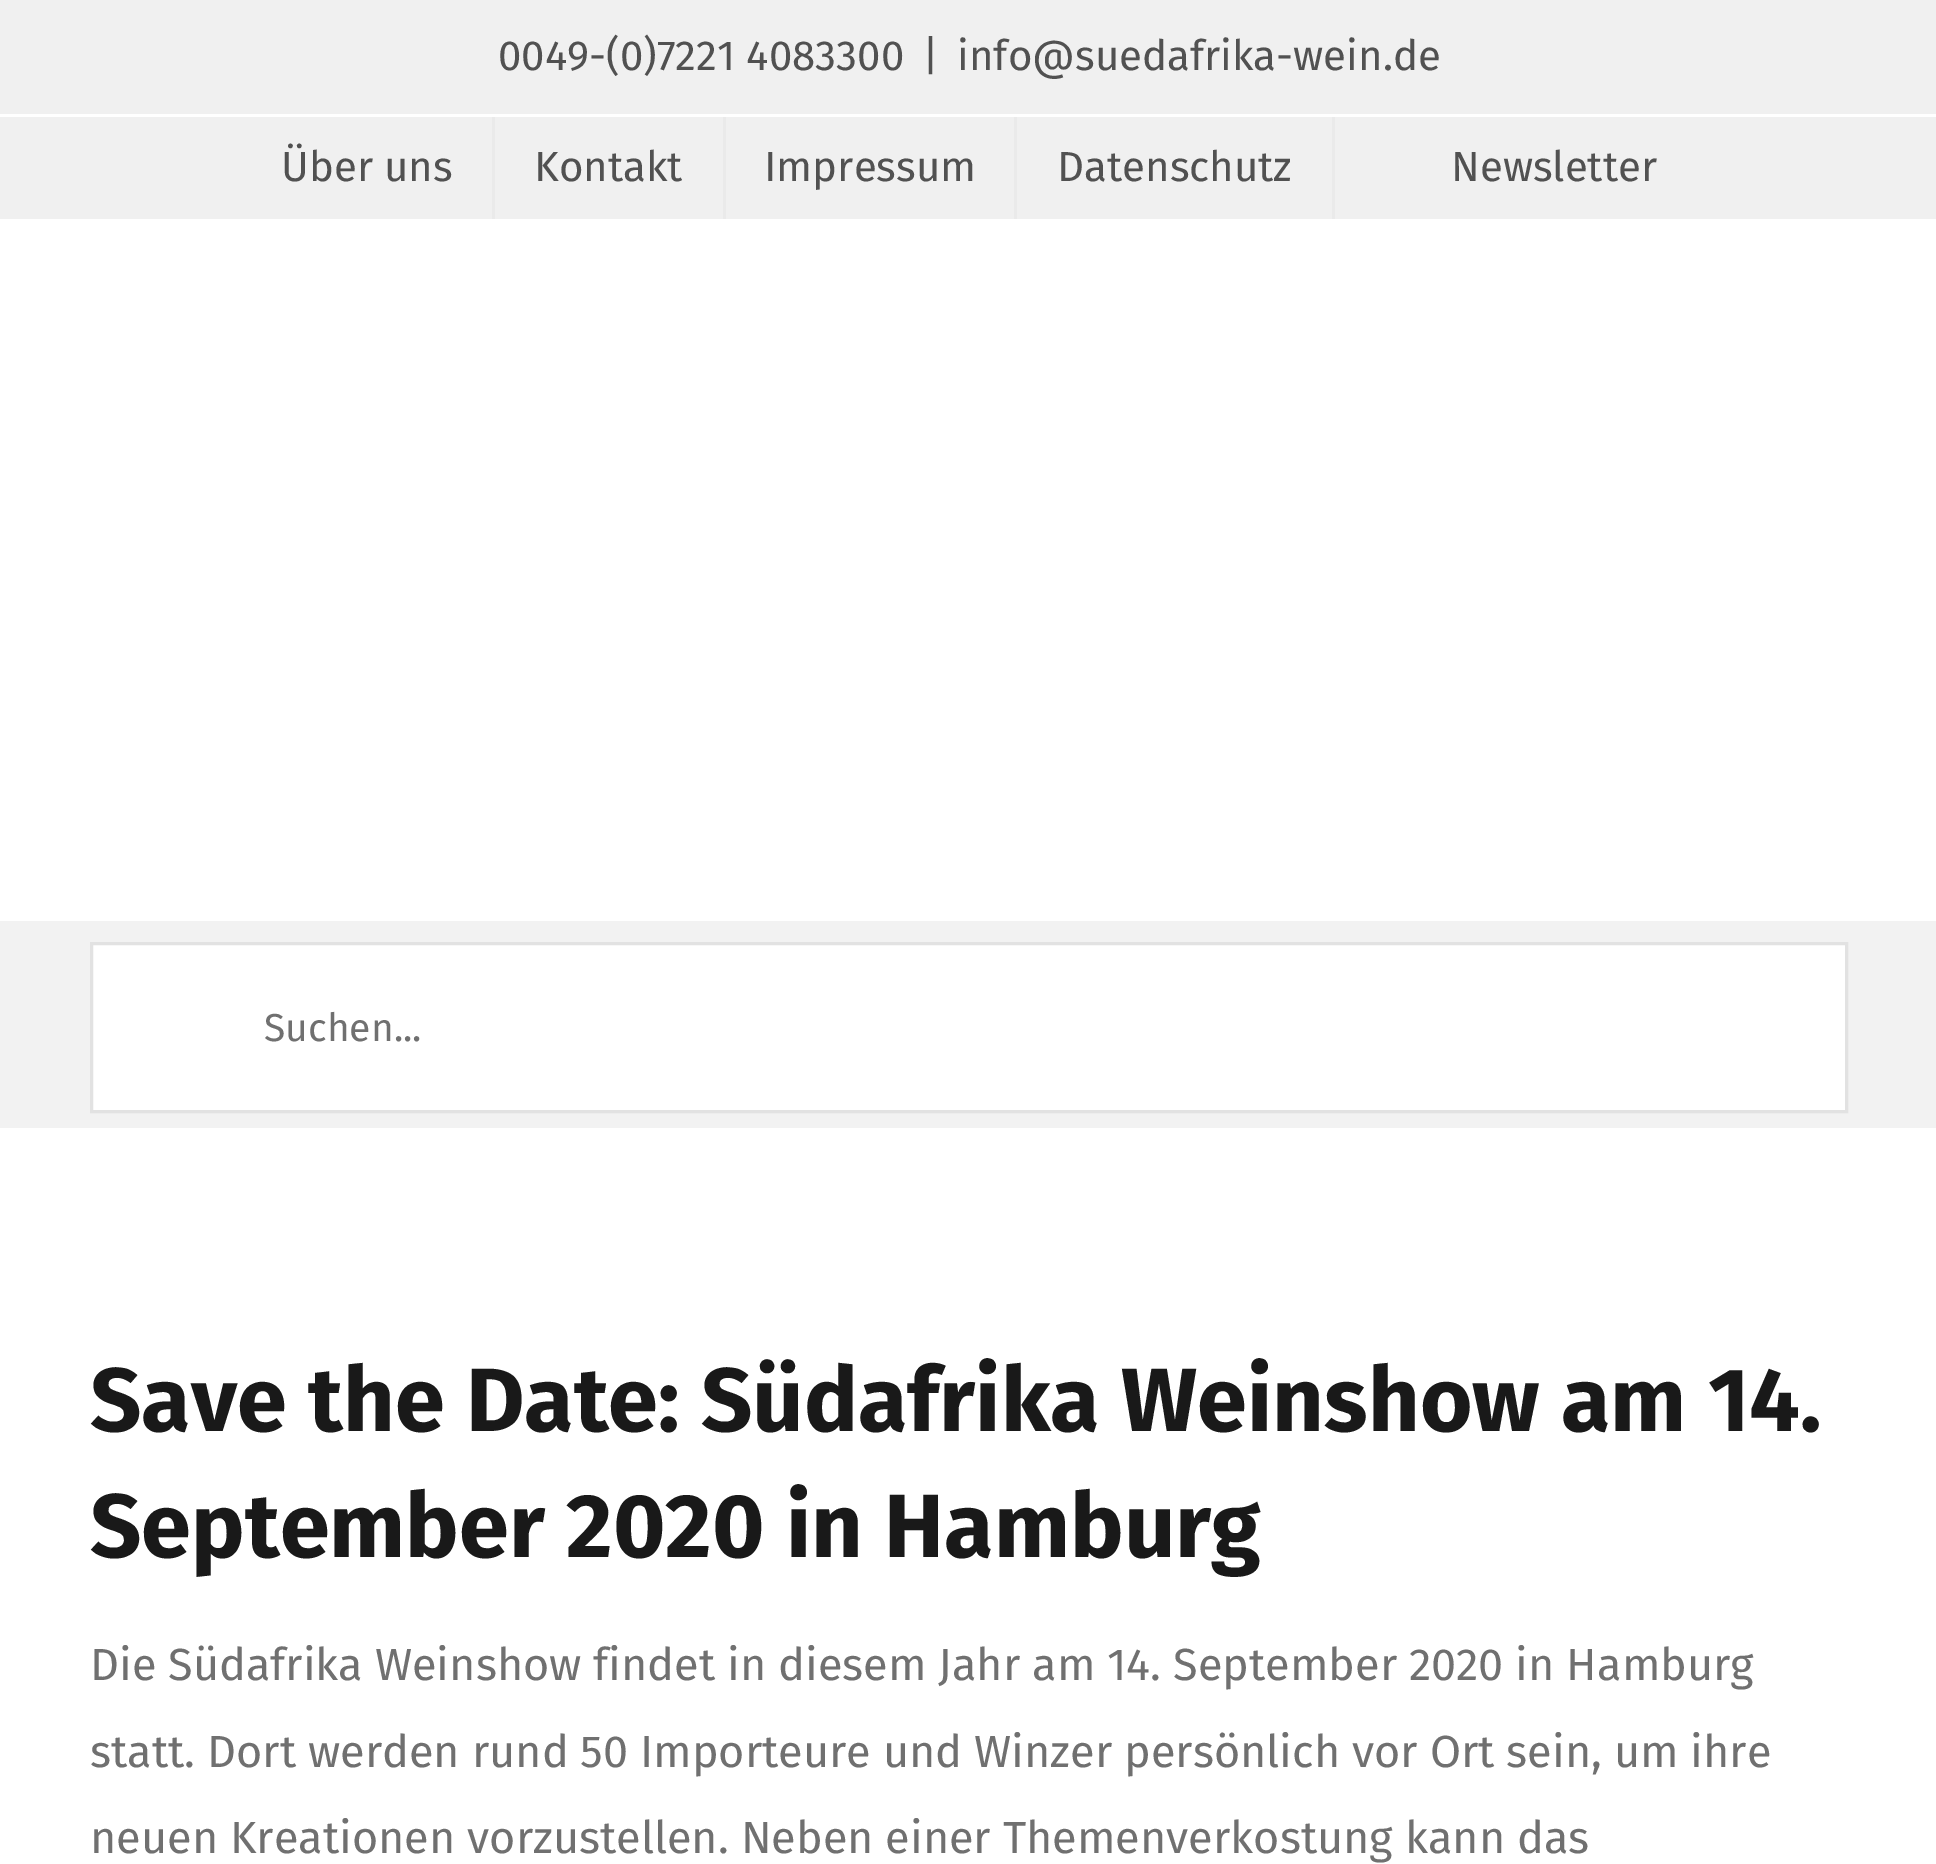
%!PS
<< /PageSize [1936 1864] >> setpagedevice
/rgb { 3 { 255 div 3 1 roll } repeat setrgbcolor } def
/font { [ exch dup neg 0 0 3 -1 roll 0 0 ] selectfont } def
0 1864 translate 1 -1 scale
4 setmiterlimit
255 255 255 rgb
0 0 1936 1864 rectfill
[
  [0 0 1936 219 240 240 240]
  [0 114 1936 3 255 255 255]
  [492 117 3 102 234 234 234]
  [723 117 3 102 234 234 234]
  [1014 117 3 102 234 234 234]
  [1332 117 3 102 234 234 234]
  [0 921 1936 207 242 242 242]
] { aload pop rgb rectfill } forall
255 255 255 rgb
91.5 943.5 moveto 1846.5 943.5 lineto 1846.5 1111.5 lineto 91.5 1111.5 lineto closepath gsave fill grestore
226 226 226 rgb
3 setlinewidth
stroke
/FiraSans-Regular 42 font
81 81 81 rgb
[
  [(0049-\(0\)7221 4083300) 498 70]
  [(|) 922 70]
  [(info@suedafrika-wein.de) 957 70]
  [(Über uns) 281 181]
  [(Kontakt) 534 181]
  [(Impressum) 764 181]
  [(Datenschutz) 1057 181]
  [(Newsletter) 1451 181]
] { aload pop moveto show } forall
/FiraSans-Regular 39 font
112 112 112 rgb
264 1041 moveto (Suchen...) show
/FiraSans-Bold 90 font
25 25 25 rgb
90 1431 moveto (Save the Date: Südafrika Weinshow am 14.) show
90 1557 moveto (September 2020 in Hamburg) show
/FiraSans-Regular 45 font
112 112 112 rgb
[
  [(Die Südafrika Weinshow findet in diesem Jahr am 14. September 2020 in Hamburg) 90 1680]
  [(statt. Dort werden rund 50 Importeure und Winzer persönlich vor Ort sein, um ihre) 90 1767]
  [(neuen Kreationen vorzustellen. Neben einer Themenverkostung kann das) 90 1853]
] { aload pop moveto show } forall
showpage
